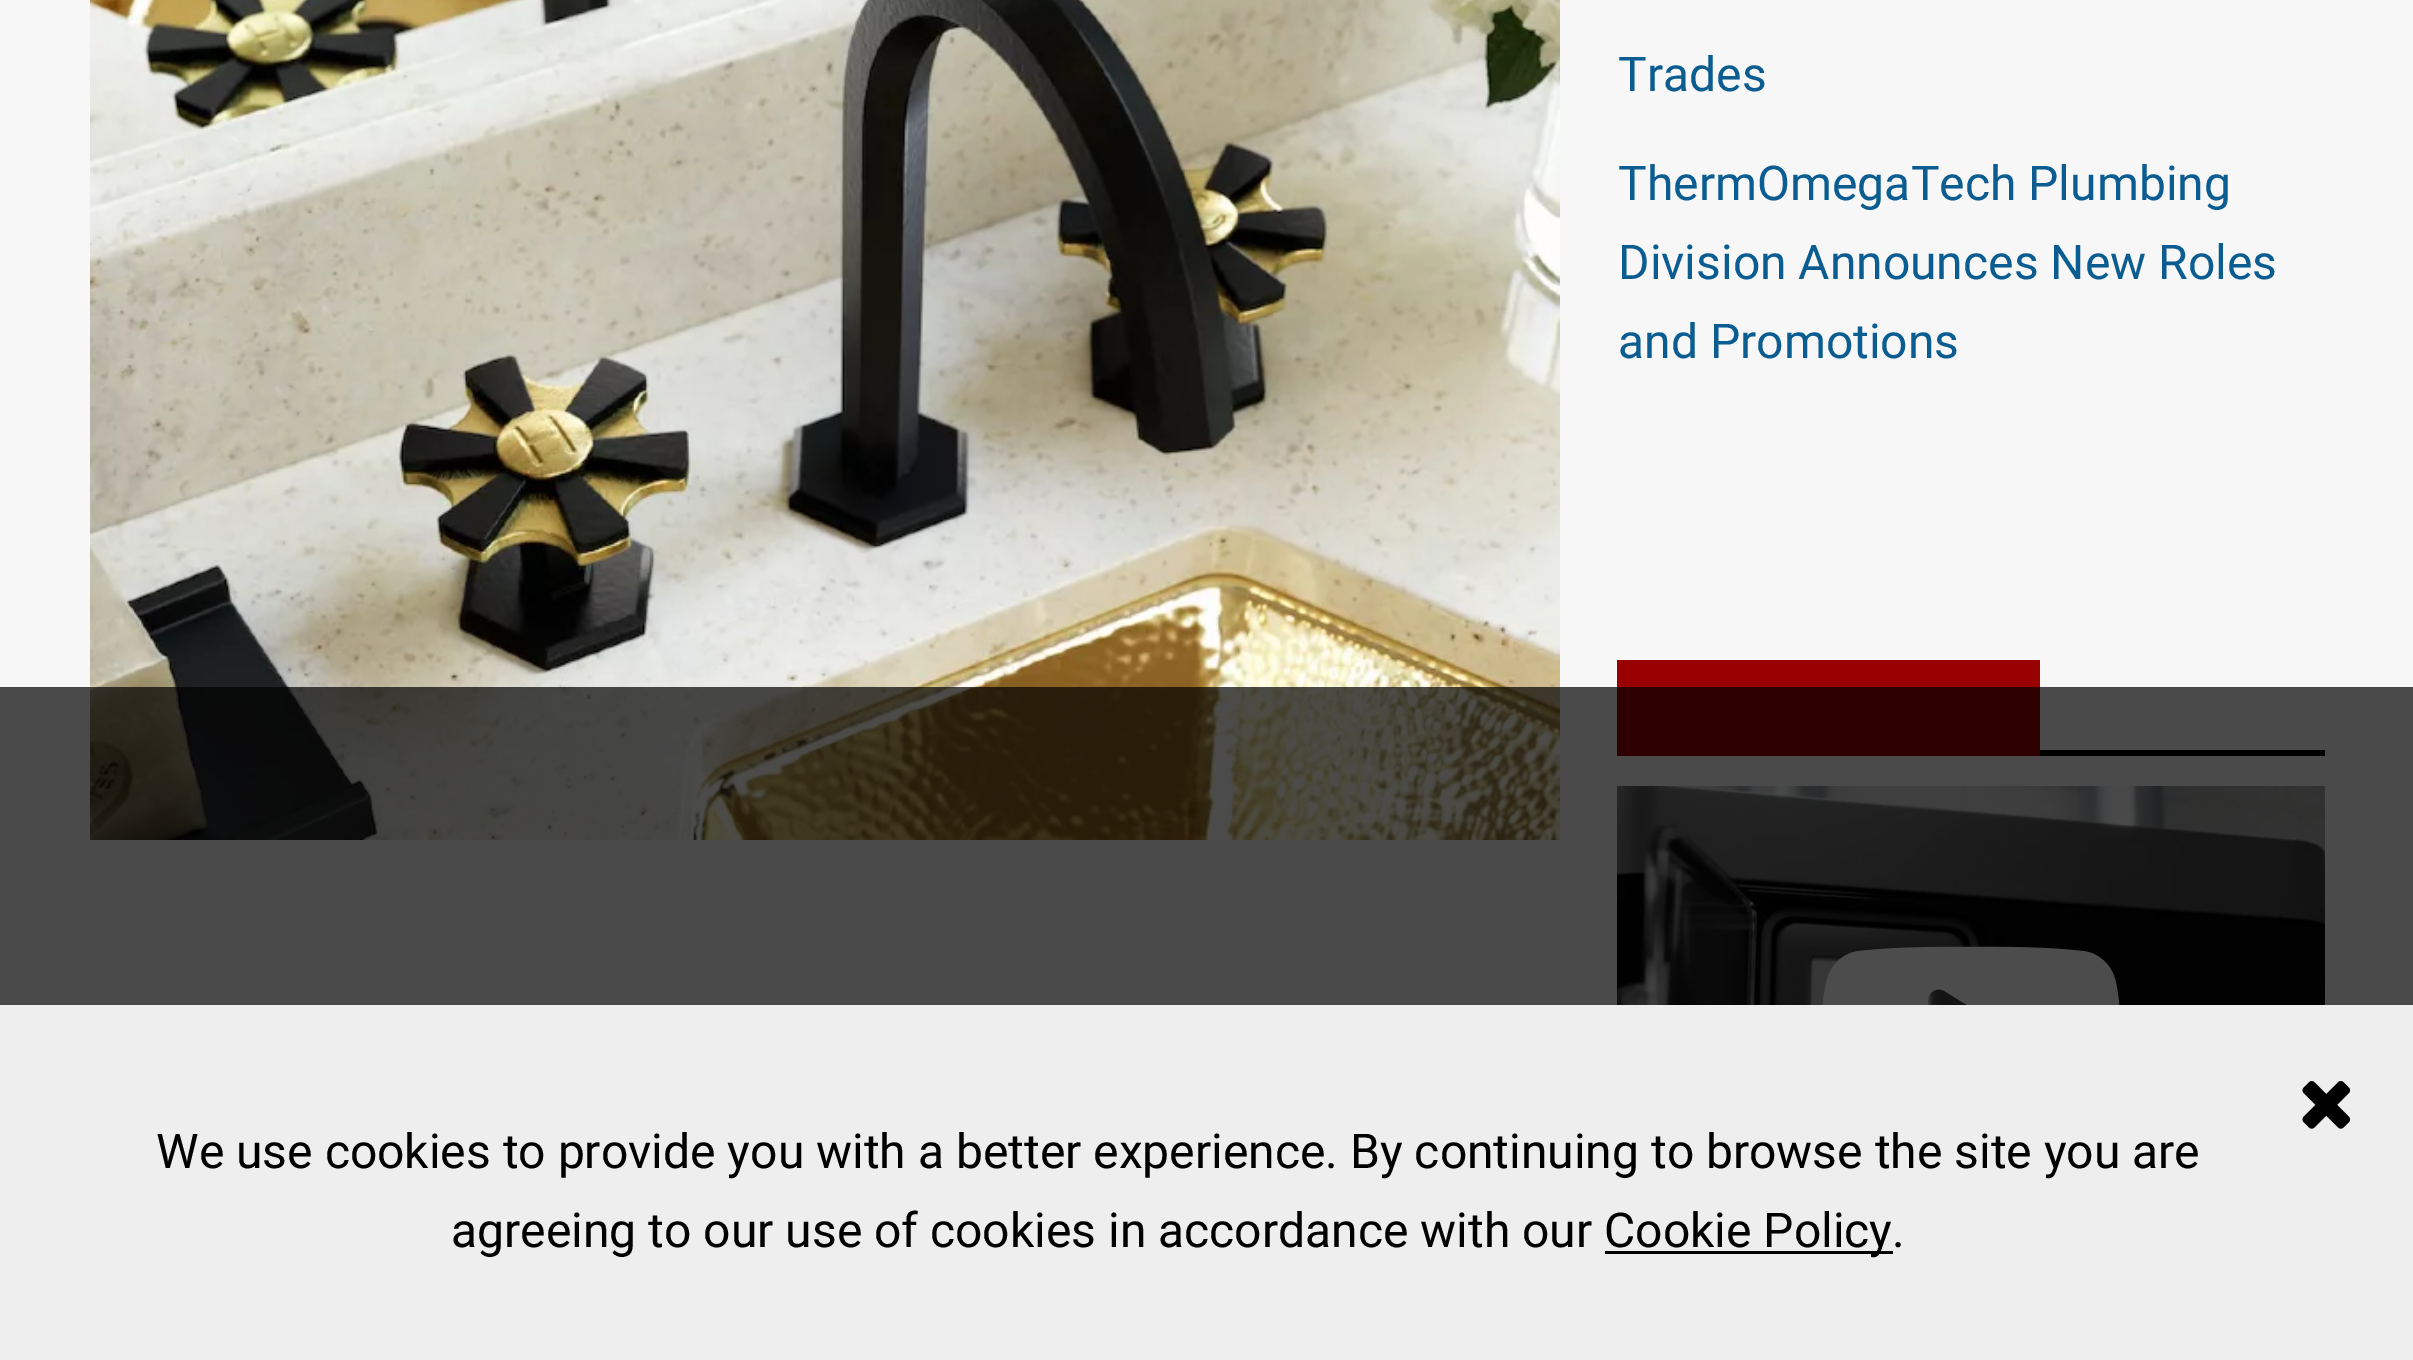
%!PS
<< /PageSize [2413 1360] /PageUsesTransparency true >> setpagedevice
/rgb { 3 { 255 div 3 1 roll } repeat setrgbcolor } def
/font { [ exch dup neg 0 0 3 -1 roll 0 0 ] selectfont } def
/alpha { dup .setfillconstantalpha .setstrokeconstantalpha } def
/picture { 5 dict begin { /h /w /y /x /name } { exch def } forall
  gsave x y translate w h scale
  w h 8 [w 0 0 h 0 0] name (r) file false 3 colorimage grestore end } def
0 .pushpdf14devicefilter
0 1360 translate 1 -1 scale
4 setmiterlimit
247 247 247 rgb
0 0 2413 1360 rectfill
(img/1.rgb) 90 0 1470 840 picture
0 0 0 rgb
2040 750 285 6 rectfill
153 0 0 rgb
1617 660 423 96 rectfill
(img/2.rgb) 1617 786 708 219 picture
(img/3.rgb) 1822 946 298 59 picture
0.7 alpha
0 0 0 rgb
0 687 2413 318 rectfill
1 alpha
238 238 238 rgb
0 1005 2413 355 rectfill
(img/4.rgb) 2302 1081 49 48 picture
0 0 0 rgb
1605 1251 288 3 rectfill
/Roboto-Regular 48 font
11 92 145 rgb
[
  [(Trades) 1618 91]
  [(ThermOmegaTech Plumbing) 1618 200]
  [(Division Announces New Roles) 1618 279]
  [(and Promotions) 1618 358]
] { aload pop moveto show } forall
0 0 0 rgb
[
  [(We use cookies to provide you with a better experience. By continuing to browse the site you are) 156 1168]
  [(agreeing to our use of cookies in accordance with our) 451 1247]
  [(Cookie Policy.) 1604 1247]
] { aload pop moveto show } forall
.poppdf14devicefilter showpage
